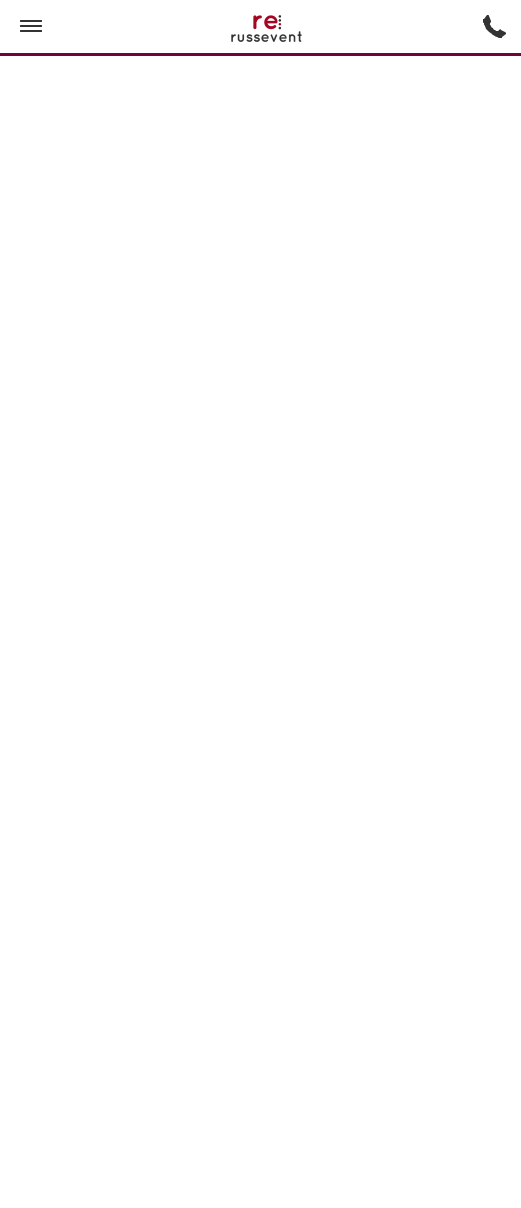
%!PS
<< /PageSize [521 1208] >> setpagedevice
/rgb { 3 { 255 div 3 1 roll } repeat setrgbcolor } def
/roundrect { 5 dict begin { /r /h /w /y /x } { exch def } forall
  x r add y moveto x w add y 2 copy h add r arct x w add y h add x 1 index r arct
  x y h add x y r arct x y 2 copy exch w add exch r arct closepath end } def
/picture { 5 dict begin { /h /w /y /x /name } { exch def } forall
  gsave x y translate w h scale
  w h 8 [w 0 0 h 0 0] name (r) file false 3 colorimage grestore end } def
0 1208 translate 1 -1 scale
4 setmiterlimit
255 255 255 rgb
0 0 521 1208 rectfill
116 2 59 rgb
0 53 521 3 rectfill
51 51 51 rgb
20 20 22 2 1 roundrect fill
20 25 22 2 1 roundrect fill
20 30 22 2 1 roundrect fill
(img/1.rgb) 231 15 71 27 picture
(img/2.rgb) 483 15 23 23 picture
showpage
